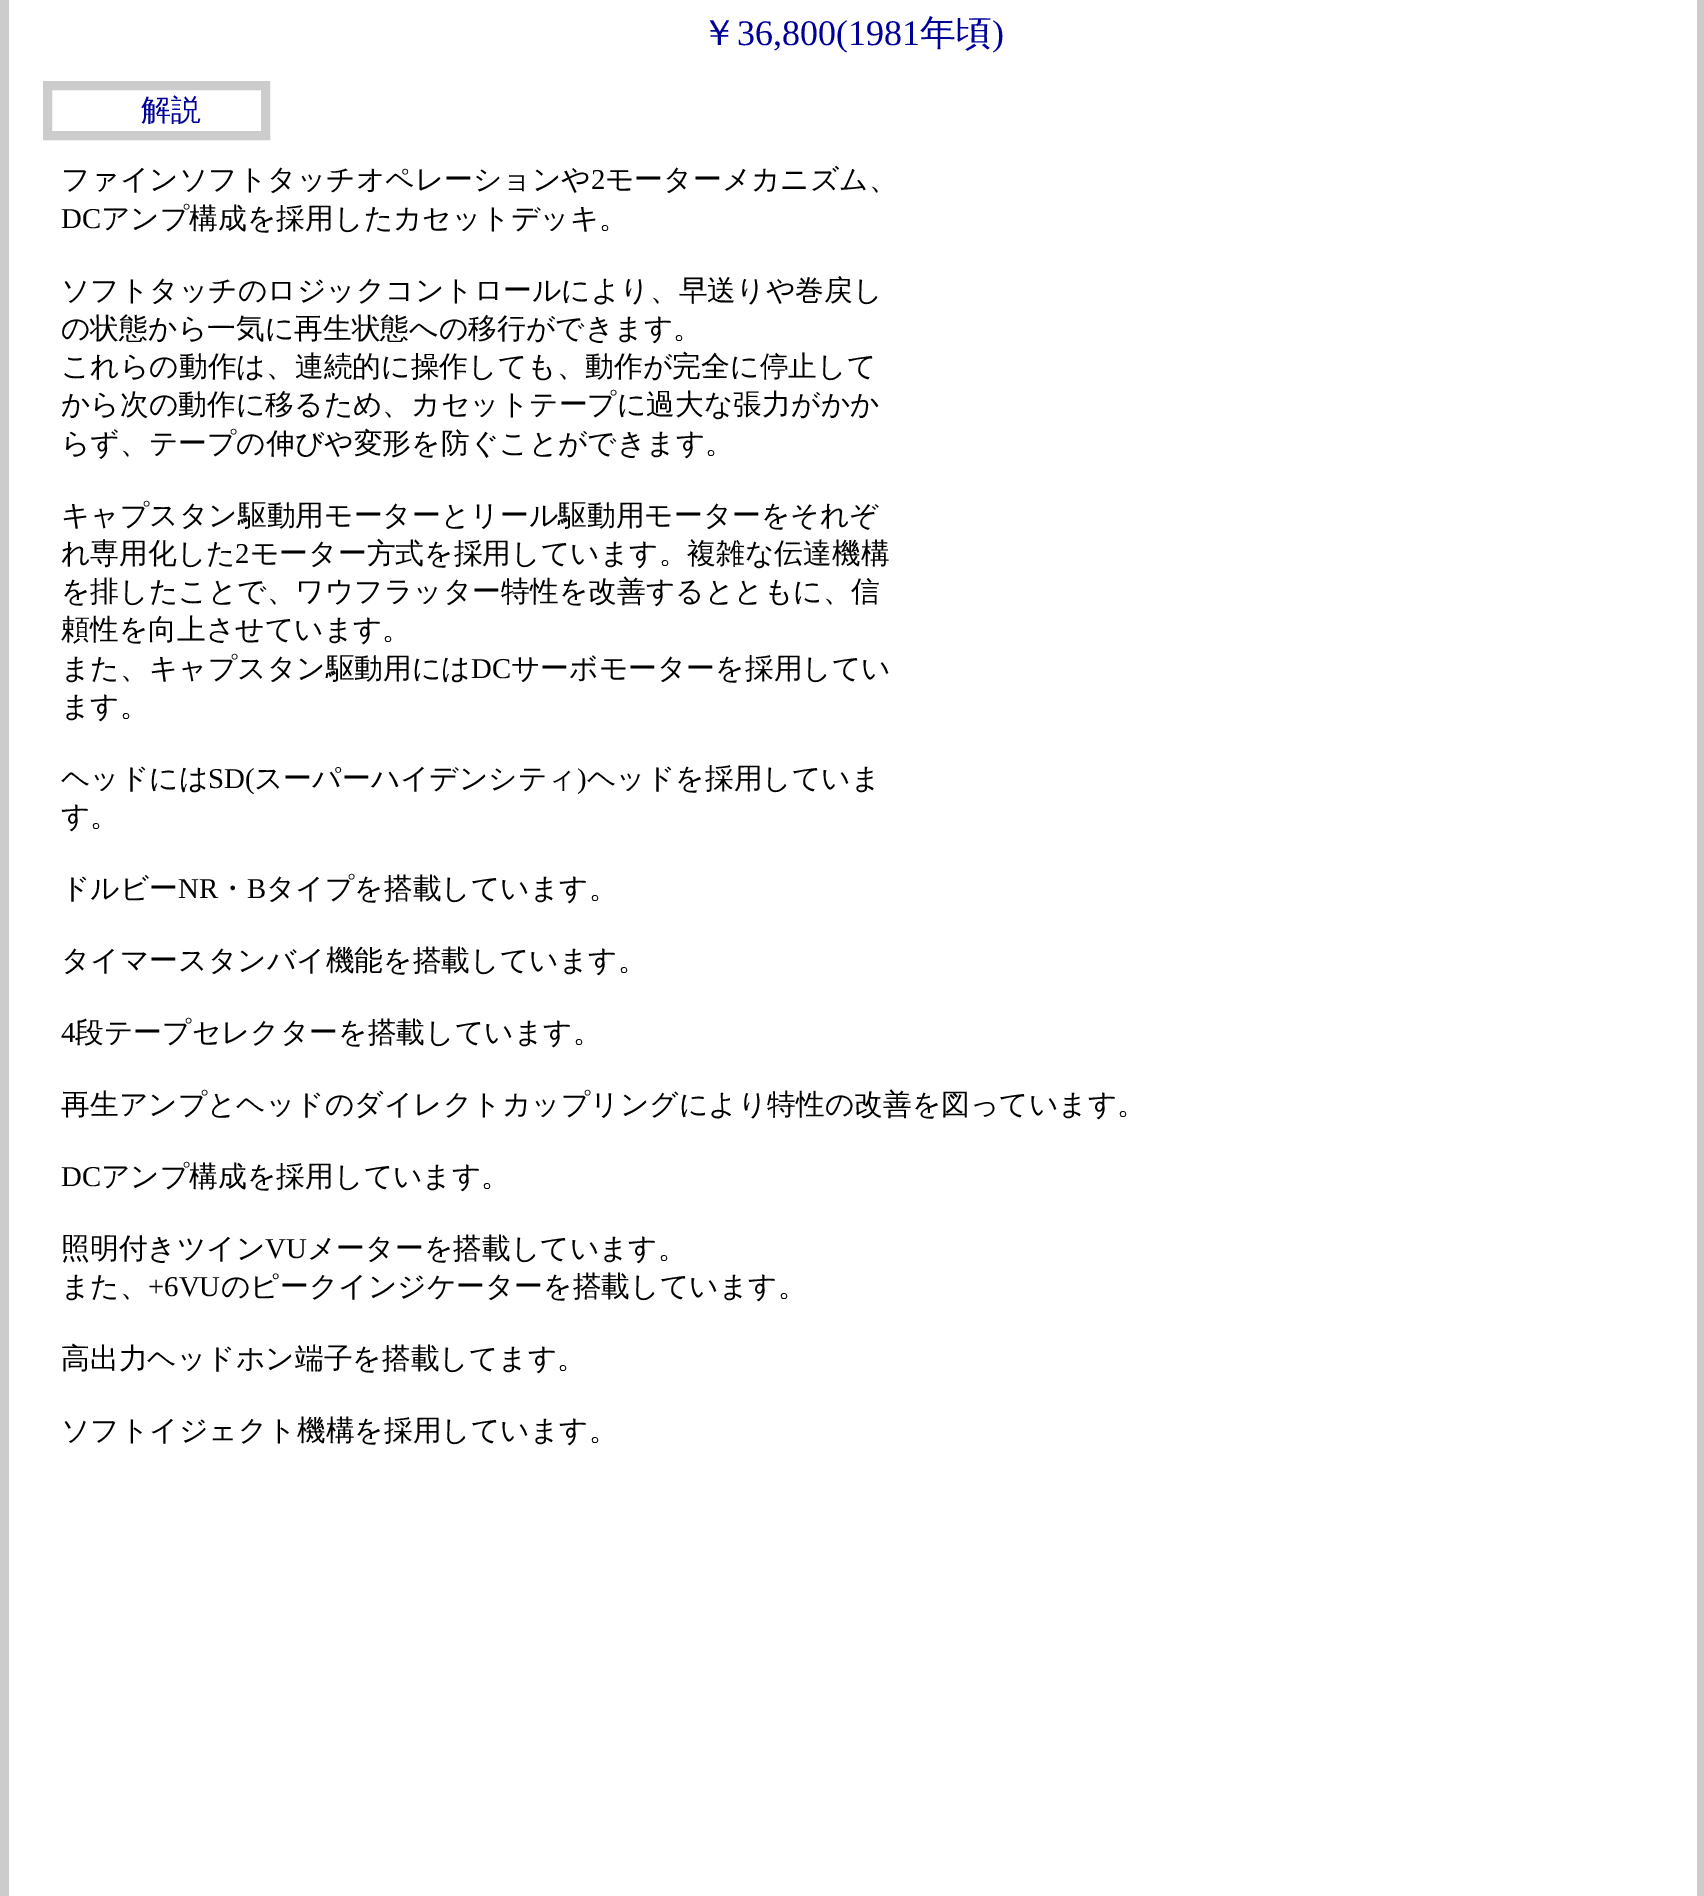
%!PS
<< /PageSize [1704 1896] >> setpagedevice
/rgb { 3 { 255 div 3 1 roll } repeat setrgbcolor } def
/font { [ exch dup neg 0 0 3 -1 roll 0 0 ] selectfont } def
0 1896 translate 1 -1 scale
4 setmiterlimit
204 204 204 rgb
0 0 1704 1896 rectfill
255 255 255 rgb
9 0 1688 1896 rectfill
204 204 204 rgb
9 setlinewidth
47.5 85.5 218 50 rectstroke
/WenQuanYiZenHei-Medium 36 font
0 0 153 rgb
701 45 moveto (￥) show
/LiberationSerif-Regular 36 font
737 45 moveto (36,800\(1981) show
/WenQuanYiZenHei-Medium 36 font
920 45 moveto (年頃) show
/LiberationSerif-Regular 36 font
992 45 moveto (\)) show
/WenQuanYiZenHei-Medium 30 font
141 120 moveto (解説) show
/WenQuanYiZenHei-Medium 28.8 font
0 0 0 rgb
61 189 moveto (ファインソフトタッチオペレーションや) show
/LiberationSerif-Regular 28.8 font
591 189 moveto (2) show
/WenQuanYiZenHei-Medium 28.8 font
605 189 moveto (モーターメカニズム、) show
/LiberationSerif-Regular 28.8 font
61 228 moveto (DC) show
/WenQuanYiZenHei-Medium 28.8 font
[
  [(アンプ構成を採用したカセットデッキ。) 101 228]
  [(ソフトタッチのロジックコントロールにより、早送りや巻戻し) 61 300]
  [(の状態から一気に再生状態への移行ができます。) 61 338]
  [(これらの動作は、連続的に操作しても、動作が完全に停止して) 61 376]
  [(から次の動作に移るため、カセットテープに過大な張力がかか) 61 414]
  [(らず、テープの伸びや変形を防ぐことができます。) 61 453]
  [(キャプスタン駆動用モーターとリール駆動用モーターをそれぞ) 61 525]
  [(れ専用化した) 61 563]
] { aload pop moveto show } forall
/LiberationSerif-Regular 28.8 font
235 563 moveto (2) show
/WenQuanYiZenHei-Medium 28.8 font
[
  [(モーター方式を採用しています。複雑な伝達機構) 250 563]
  [(を排したことで、ワウフラッター特性を改善するとともに、信) 61 601]
  [(頼性を向上させています。) 61 639]
  [(また、キャプスタン駆動用には) 61 678]
] { aload pop moveto show } forall
/LiberationSerif-Regular 28.8 font
471 678 moveto (DC) show
/WenQuanYiZenHei-Medium 28.8 font
[
  [(サーボモーターを採用してい) 511 678]
  [(ます。) 61 716]
  [(ヘッドには) 61 788]
] { aload pop moveto show } forall
/LiberationSerif-Regular 28.8 font
208 788 moveto (SD\() show
/WenQuanYiZenHei-Medium 28.8 font
254 788 moveto (スーパーハイデンシティ) show
/LiberationSerif-Regular 28.8 font
577 788 moveto (\)) show
/WenQuanYiZenHei-Medium 28.8 font
[
  [(ヘッドを採用していま) 587 788]
  [(す。) 61 826]
  [(ドルビー) 61 898]
] { aload pop moveto show } forall
/LiberationSerif-Regular 28.8 font
178 898 moveto (NR) show
/WenQuanYiZenHei-Medium 28.8 font
218 898 moveto (・) show
/LiberationSerif-Regular 28.8 font
247 898 moveto (B) show
/WenQuanYiZenHei-Medium 28.8 font
266 898 moveto (タイプを搭載しています。) show
61 970 moveto (タイマースタンバイ機能を搭載しています。) show
/LiberationSerif-Regular 28.8 font
61 1042 moveto (4) show
/WenQuanYiZenHei-Medium 28.8 font
75 1042 moveto (段テープセレクターを搭載しています。) show
61 1114 moveto (再生アンプとヘッドのダイレクトカップリングにより特性の改善を図っています。) show
/LiberationSerif-Regular 28.8 font
61 1186 moveto (DC) show
/WenQuanYiZenHei-Medium 28.8 font
101 1186 moveto (アンプ構成を採用しています。) show
61 1258 moveto (照明付きツイン) show
/LiberationSerif-Regular 28.8 font
265 1258 moveto (VU) show
/WenQuanYiZenHei-Medium 28.8 font
307 1258 moveto (メーターを搭載しています。) show
61 1296 moveto (また、) show
/LiberationSerif-Regular 28.8 font
148 1296 moveto (+6VU) show
/WenQuanYiZenHei-Medium 28.8 font
[
  [(のピークインジケーターを搭載しています。) 221 1296]
  [(高出力ヘッドホン端子を搭載してます。) 61 1368]
  [(ソフトイジェクト機構を採用しています。) 61 1440]
] { aload pop moveto show } forall
showpage
